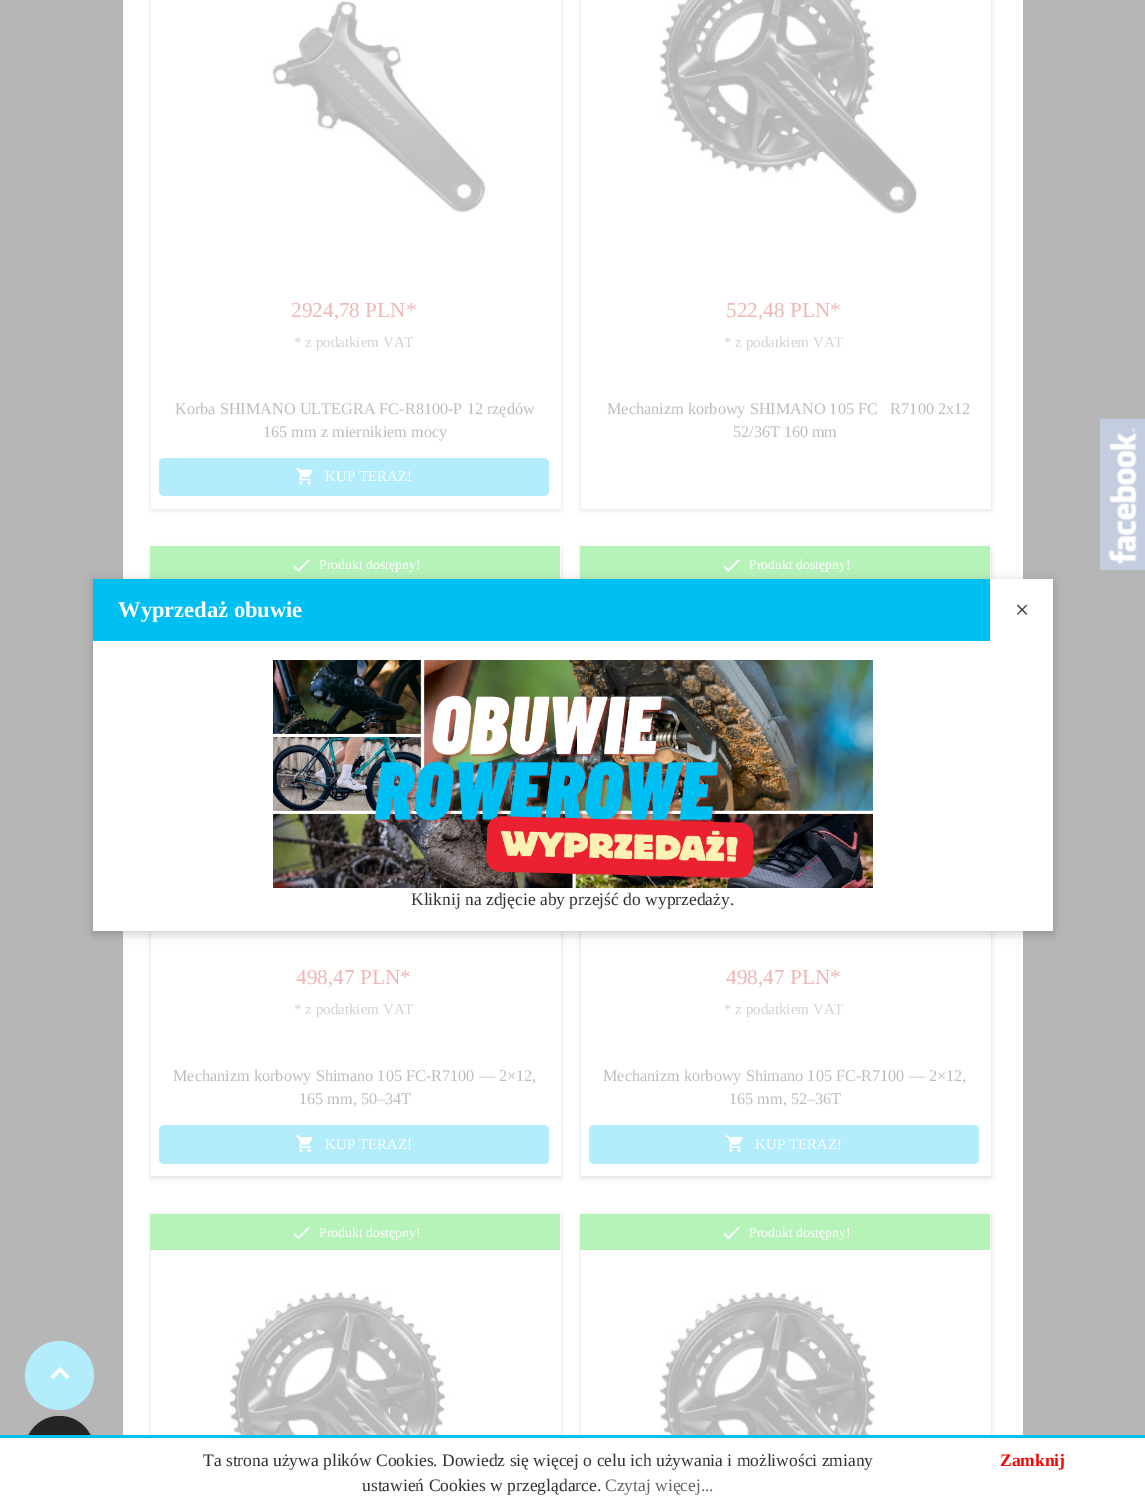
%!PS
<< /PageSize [1145 1509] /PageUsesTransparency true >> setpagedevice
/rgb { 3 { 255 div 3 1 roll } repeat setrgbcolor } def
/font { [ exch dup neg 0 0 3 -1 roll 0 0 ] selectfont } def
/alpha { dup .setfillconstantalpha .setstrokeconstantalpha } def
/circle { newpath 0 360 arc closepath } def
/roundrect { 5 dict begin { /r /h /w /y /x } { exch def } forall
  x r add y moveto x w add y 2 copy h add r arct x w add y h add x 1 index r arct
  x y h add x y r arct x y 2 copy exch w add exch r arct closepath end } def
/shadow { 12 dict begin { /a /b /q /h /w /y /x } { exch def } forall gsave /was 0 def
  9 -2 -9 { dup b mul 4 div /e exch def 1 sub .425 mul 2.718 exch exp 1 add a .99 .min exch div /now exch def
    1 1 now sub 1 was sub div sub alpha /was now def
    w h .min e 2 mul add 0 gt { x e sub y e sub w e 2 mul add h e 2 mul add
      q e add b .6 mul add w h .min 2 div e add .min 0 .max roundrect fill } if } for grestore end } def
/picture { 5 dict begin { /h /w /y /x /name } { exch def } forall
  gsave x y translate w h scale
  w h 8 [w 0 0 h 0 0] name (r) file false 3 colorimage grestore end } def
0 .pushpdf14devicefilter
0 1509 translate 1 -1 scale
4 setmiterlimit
182 182 182 rgb
0 0 1145 1509 rectfill
255 255 255 rgb
123 0 900 1435 rectfill
179 179 179 rgb
151 -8 410 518 0 2.5 0.42 shadow
255 255 255 rgb
151 0 410 509 rectfill
(img/1.rgb) 269 0 220 217 picture
179 236 251 rgb
159 458 390 38 5 roundrect fill
(img/2.rgb) 295 467 18 18 picture
179 179 179 rgb
581 -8 410 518 0 2.5 0.42 shadow
255 255 255 rgb
581 0 410 509 rectfill
(img/3.rgb) 659 0 260 217 picture
179 179 179 rgb
151 548 410 630 0 2.5 0.42 shadow
255 255 255 rgb
151 546 410 630 rectfill
182 243 185 rgb
150 546 410 33 rectfill
(img/4.rgb) 293 559 17 13 picture
179 236 251 rgb
159 1125 390 39 5 roundrect fill
(img/5.rgb) 295 1135 18 18 picture
179 179 179 rgb
581 548 410 630 0 2.5 0.42 shadow
255 255 255 rgb
581 546 410 630 rectfill
182 243 185 rgb
580 546 410 33 rectfill
(img/4.rgb) 723 559 17 13 picture
179 236 251 rgb
589 1125 390 39 5 roundrect fill
(img/5.rgb) 725 1135 18 18 picture
179 179 179 rgb
151 1215 410 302 0 2.5 0.42 shadow
255 255 255 rgb
151 1214 410 221 rectfill
182 243 185 rgb
150 1214 410 36 rectfill
(img/6.rgb) 293 1226 17 14 picture
(img/7.rgb) 229 1291 249 144 picture
179 179 179 rgb
581 1215 410 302 0 2.5 0.42 shadow
255 255 255 rgb
581 1214 410 221 rectfill
182 243 185 rgb
580 1214 410 36 rectfill
(img/6.rgb) 723 1226 17 14 picture
(img/8.rgb) 659 1291 249 144 picture
(img/9.rgb) 1100 418 45 152 picture
0 0 0 rgb
93 581 960 353 0 5 0.2 shadow
[
  [93 641 960 290 255 255 255]
  [93 579 897 62 0 191 243]
  [990 579 63 62 255 255 255]
] { aload pop rgb rectfill } forall
(img/10.rgb) 273 660 600 228 picture
179 236 251 rgb
59.5 1375.5 34.5 circle fill
255 255 255 rgb
53 1379 moveto 60 1371.5 lineto 67 1379 lineto 69.5 1376.5 lineto 60 1367 lineto 50.5 1376.5 lineto closepath fill
0 0 0 rgb
25 1419 69 69 34.5 2.5 0.3 shadow
37 37 37 rgb
59.5 1450.5 34.5 circle fill
255 255 255 rgb
0 1438 1145 71 rectfill
0 194 242 rgb
0 1435 1145 3 rectfill
/LiberationSerif-Regular 21.25 font
239 182 182 rgb
291 317 moveto (2924,78 PLN*) show
/LiberationSerif-Regular 15 font
209 209 209 rgb
294 347 moveto (* z podatkiem VAT) show
/LiberationSerif-Regular 16.25 font
189 189 189 rgb
175 414 moveto (Korba SHIMANO ULTEGRA FC-R8100-P 12 rzędów) show
263 437 moveto (165 mm z miernikiem mocy) show
/LiberationSerif-Regular 15 font
255 255 255 rgb
325 481 moveto (KUP TERAZ!) show
/LiberationSerif-Regular 21.25 font
239 182 182 rgb
726 317 moveto (522,48 PLN*) show
/LiberationSerif-Regular 15 font
209 209 209 rgb
724 347 moveto (* z podatkiem VAT) show
/LiberationSerif-Regular 16.25 font
189 189 189 rgb
607 414 moveto (Mechanizm korbowy SHIMANO 105 FC‑R7100 2x12) show
733 437 moveto (52/36T 160 mm) show
/LiberationSerif-Regular 13.75 font
255 255 255 rgb
319 569 moveto (Produkt dostępny!) show
/LiberationSerif-Regular 21.25 font
239 182 182 rgb
296 984 moveto (498,47 PLN*) show
/LiberationSerif-Regular 15 font
209 209 209 rgb
294 1014 moveto (* z podatkiem VAT) show
/LiberationSerif-Regular 16.25 font
189 189 189 rgb
173 1081 moveto (Mechanizm korbowy Shimano 105 FC-R7100 — 2×12,) show
299 1104 moveto (165 mm, 50–34T) show
/LiberationSerif-Regular 15 font
255 255 255 rgb
325 1149 moveto (KUP TERAZ!) show
/LiberationSerif-Regular 13.75 font
749 569 moveto (Produkt dostępny!) show
/LiberationSerif-Regular 21.25 font
239 182 182 rgb
726 984 moveto (498,47 PLN*) show
/LiberationSerif-Regular 15 font
209 209 209 rgb
724 1014 moveto (* z podatkiem VAT) show
/LiberationSerif-Regular 16.25 font
189 189 189 rgb
603 1081 moveto (Mechanizm korbowy Shimano 105 FC-R7100 — 2×12,) show
729 1104 moveto (165 mm, 52–36T) show
/LiberationSerif-Regular 15 font
255 255 255 rgb
755 1149 moveto (KUP TERAZ!) show
/LiberationSerif-Regular 13.75 font
319 1237 moveto (Produkt dostępny!) show
749 1237 moveto (Produkt dostępny!) show
/LiberationSerif-Bold 22.5 font
118 617 moveto (Wyprzedaż obuwie) show
/LiberationSerif-Regular 25 font
51 51 51 rgb
1015 618 moveto (×) show
/LiberationSerif-Regular 17.5 font
[
  [(Kliknij na zdjęcie aby przejść do wyprzedaży.) 411 905]
  [(Ta strona używa plików Cookies. Dowiedz się więcej o celu ich używania i możliwości zmiany) 203 1466]
  [(ustawień Cookies w przeglądarce.) 362 1491]
] { aload pop moveto show } forall
102 102 102 rgb
605 1491 moveto (Czytaj więcej...) show
/LiberationSerif-Bold 17.5 font
255 0 0 rgb
1000 1466 moveto (Zamknij) show
.poppdf14devicefilter showpage
